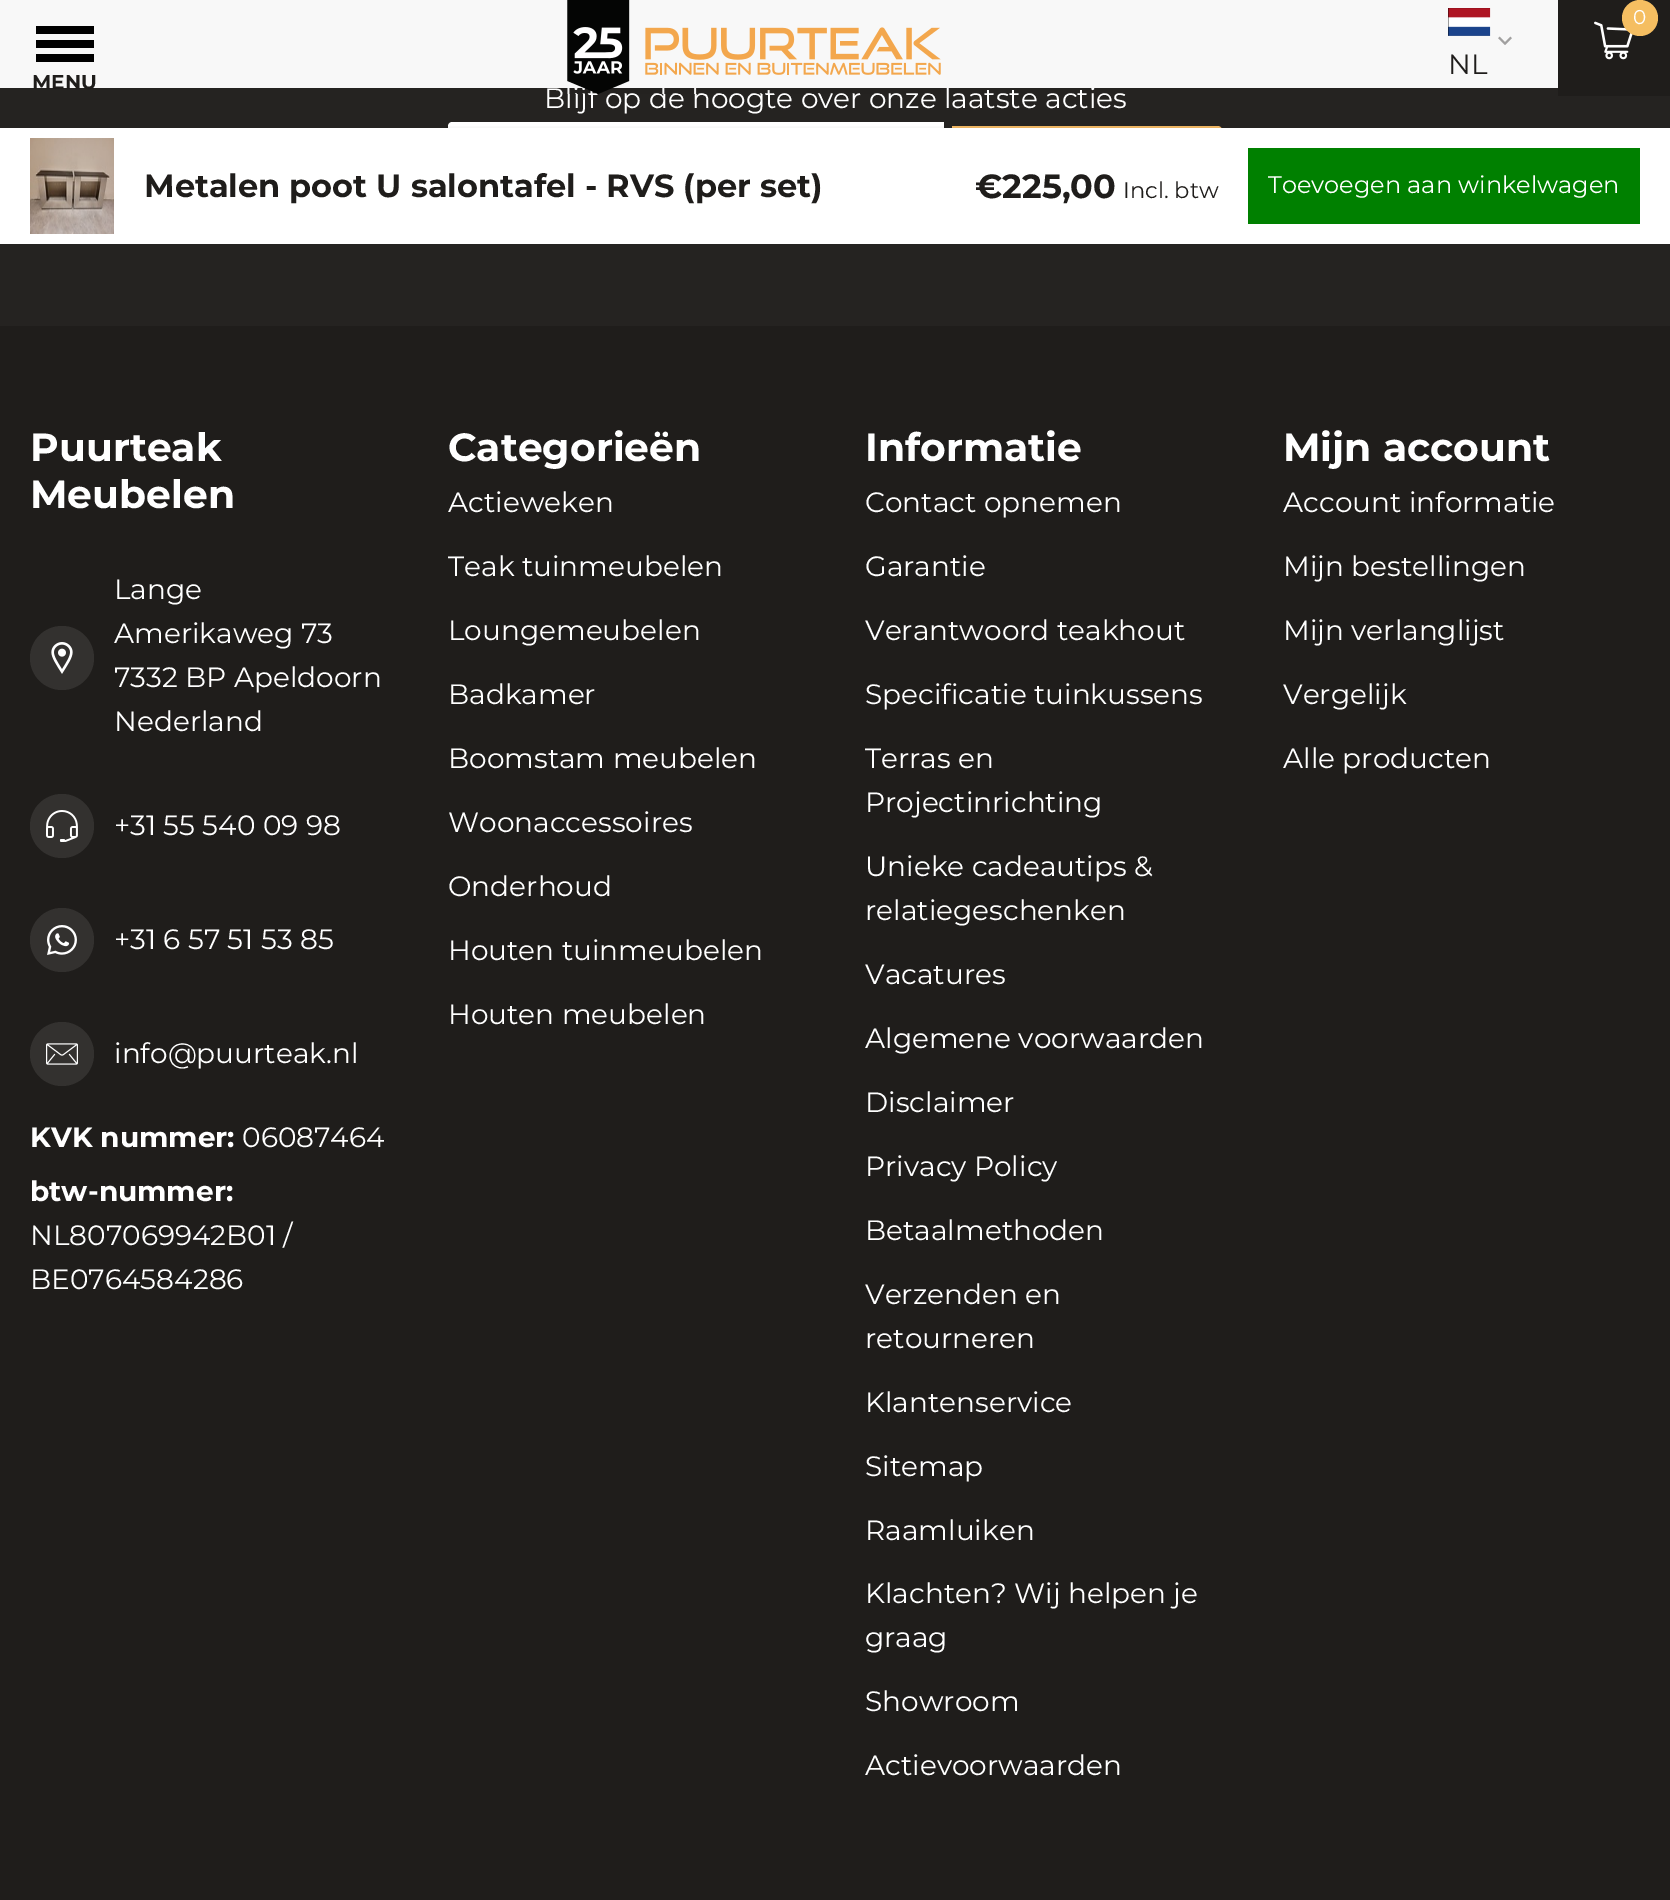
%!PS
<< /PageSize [1670 1900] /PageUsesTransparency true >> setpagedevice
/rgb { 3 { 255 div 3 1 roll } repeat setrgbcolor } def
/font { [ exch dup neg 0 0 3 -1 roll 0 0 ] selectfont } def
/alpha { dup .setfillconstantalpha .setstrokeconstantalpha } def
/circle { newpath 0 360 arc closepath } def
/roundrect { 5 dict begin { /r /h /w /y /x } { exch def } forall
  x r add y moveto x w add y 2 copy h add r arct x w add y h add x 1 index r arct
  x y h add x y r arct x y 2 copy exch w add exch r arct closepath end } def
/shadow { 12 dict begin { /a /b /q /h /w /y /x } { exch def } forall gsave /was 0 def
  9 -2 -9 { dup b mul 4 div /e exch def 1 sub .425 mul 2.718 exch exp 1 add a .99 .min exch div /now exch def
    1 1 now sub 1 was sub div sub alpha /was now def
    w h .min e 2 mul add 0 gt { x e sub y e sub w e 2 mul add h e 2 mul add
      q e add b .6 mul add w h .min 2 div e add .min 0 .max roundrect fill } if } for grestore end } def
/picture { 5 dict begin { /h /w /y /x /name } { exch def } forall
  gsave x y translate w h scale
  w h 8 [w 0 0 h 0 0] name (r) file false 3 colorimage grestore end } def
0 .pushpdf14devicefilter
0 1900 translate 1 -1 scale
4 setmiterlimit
31 29 27 rgb
0 0 1670 1900 rectfill
37 35 33 rgb
0 88 1670 238 rectfill
31 29 27 rgb
1558 88 112 8 rectfill
(img/1.rgb) 1594 21 39 39 picture
245 190 97 rgb
1640 18 18 circle fill
255 255 255 rgb
452 122 moveto 944 122 lineto 944 222 lineto 452 222 lineto 450 222 448 220 448 218 curveto 448 126 lineto 448 124 450 122 452 122 curveto closepath fill
242 184 99 rgb
952 126 moveto 1218 126 lineto 1220 126 1222 128 1222 130 curveto 1222 222 lineto 1222 224 1220 226 1218 226 curveto 952 226 lineto closepath fill
51 49 47 rgb
62 658 32 circle fill
(img/5.rgb) 51 642 22 32 picture
62 826 32 circle fill
(img/6.rgb) 46 810 32 32 picture
62 940 32 circle fill
(img/7.rgb) 47 925 30 30 picture
62 1054 32 circle fill
(img/8.rgb) 46 1043 32 22 picture
31 29 27 rgb
28 160 1614 60 0 15 1 shadow
255 255 255 rgb
0 128 1670 116 rectfill
(img/9.rgb) 30 138 84 96 picture
0 128 0 rgb
1248 148 392 76 rectfill
/Montserrat-Regular 20 font
255 255 255 rgb
1633 24 moveto (0) show
/Montserrat-Regular 28 font
544 108 moveto (Blijf op de hoogte over onze laatste acties) show
248 248 248 rgb
0 0 1558 88 rectfill
(img/3.rgb) 1498 36 14 9 picture
31 29 27 rgb
1448 74 moveto (NL) show
(img/2.rgb) 1448 8 43 28 picture
/Montserrat-Bold 20 font
32 89 moveto (MENU) show
[
  [36 54 58 8 0 0 0]
  [36 40 58 8 0 0 0]
  [36 26 58 8 0 0 0]
] { aload pop rgb rectfill } forall
(img/4.rgb) 567 0 374 94 picture
/Montserrat-Bold 39.25 font
255 255 255 rgb
30 461 moveto (Puurteak) show
30 508 moveto (Meubelen) show
/Montserrat-Regular 28 font
[
  [(Lange) 114 599]
  [(Amerikaweg 73) 114 643]
  [(7332 BP Apeldoorn) 114 687]
  [(Nederland) 114 731]
  [(+31 55 540 09 98) 114 835]
  [(+31 6 57 51 53 85) 114 949]
  [(info@puurteak.nl) 114 1063]
] { aload pop moveto show } forall
/Montserrat-Bold 28 font
30 1147 moveto (KVK nummer:) show
/Montserrat-Regular 28 font
242 1147 moveto (06087464) show
/Montserrat-Bold 28 font
30 1201 moveto (btw-nummer:) show
/Montserrat-Regular 28 font
30 1245 moveto (NL807069942B01 /) show
30 1289 moveto (BE0764584286) show
/Montserrat-Bold 39.25 font
448 461 moveto (Categorieën) show
/Montserrat-Regular 28 font
[
  [(Actieweken) 448 512]
  [(Teak tuinmeubelen) 448 576]
  [(Loungemeubelen) 448 640]
  [(Badkamer) 448 704]
  [(Boomstam meubelen) 448 768]
  [(Woonaccessoires) 448 832]
  [(Onderhoud) 448 896]
  [(Houten tuinmeubelen) 448 960]
  [(Houten meubelen) 448 1024]
] { aload pop moveto show } forall
/Montserrat-Bold 39.25 font
865 461 moveto (Informatie) show
/Montserrat-Regular 28 font
[
  [(Contact opnemen) 865 512]
  [(Garantie) 865 576]
  [(Verantwoord teakhout) 865 640]
  [(Specificatie tuinkussens) 865 704]
  [(Terras en) 865 768]
  [(Projectinrichting) 865 812]
  [(Unieke cadeautips &) 865 876]
  [(relatiegeschenken) 865 920]
  [(Vacatures) 865 984]
  [(Algemene voorwaarden) 865 1048]
  [(Disclaimer) 865 1112]
  [(Privacy Policy) 865 1176]
  [(Betaalmethoden) 865 1240]
  [(Verzenden en) 865 1304]
  [(retourneren) 865 1348]
  [(Klantenservice) 865 1412]
  [(Sitemap) 865 1476]
  [(Raamluiken) 865 1540]
  [(Klachten? Wij helpen je) 865 1603]
  [(graag) 865 1647]
  [(Showroom) 865 1711]
  [(Actievoorwaarden) 865 1775]
] { aload pop moveto show } forall
/Montserrat-Bold 39.25 font
1283 461 moveto (Mijn account) show
/Montserrat-Regular 28 font
[
  [(Account informatie) 1283 512]
  [(Mijn bestellingen) 1283 576]
  [(Mijn verlanglijst) 1283 640]
  [(Vergelijk) 1283 704]
  [(Alle producten) 1283 768]
] { aload pop moveto show } forall
/Montserrat-Bold 32 font
31 29 27 rgb
144 197 moveto (Metalen poot U salontafel - RVS \(per set\)) show
/Montserrat-Bold 33.5 font
975 198 moveto (€225,00) show
/Montserrat-Regular 22.5 font
1123 198 moveto (Incl. btw) show
/Montserrat-Regular 24 font
255 255 255 rgb
1268 193 moveto (Toevoegen aan winkelwagen) show
.poppdf14devicefilter showpage
